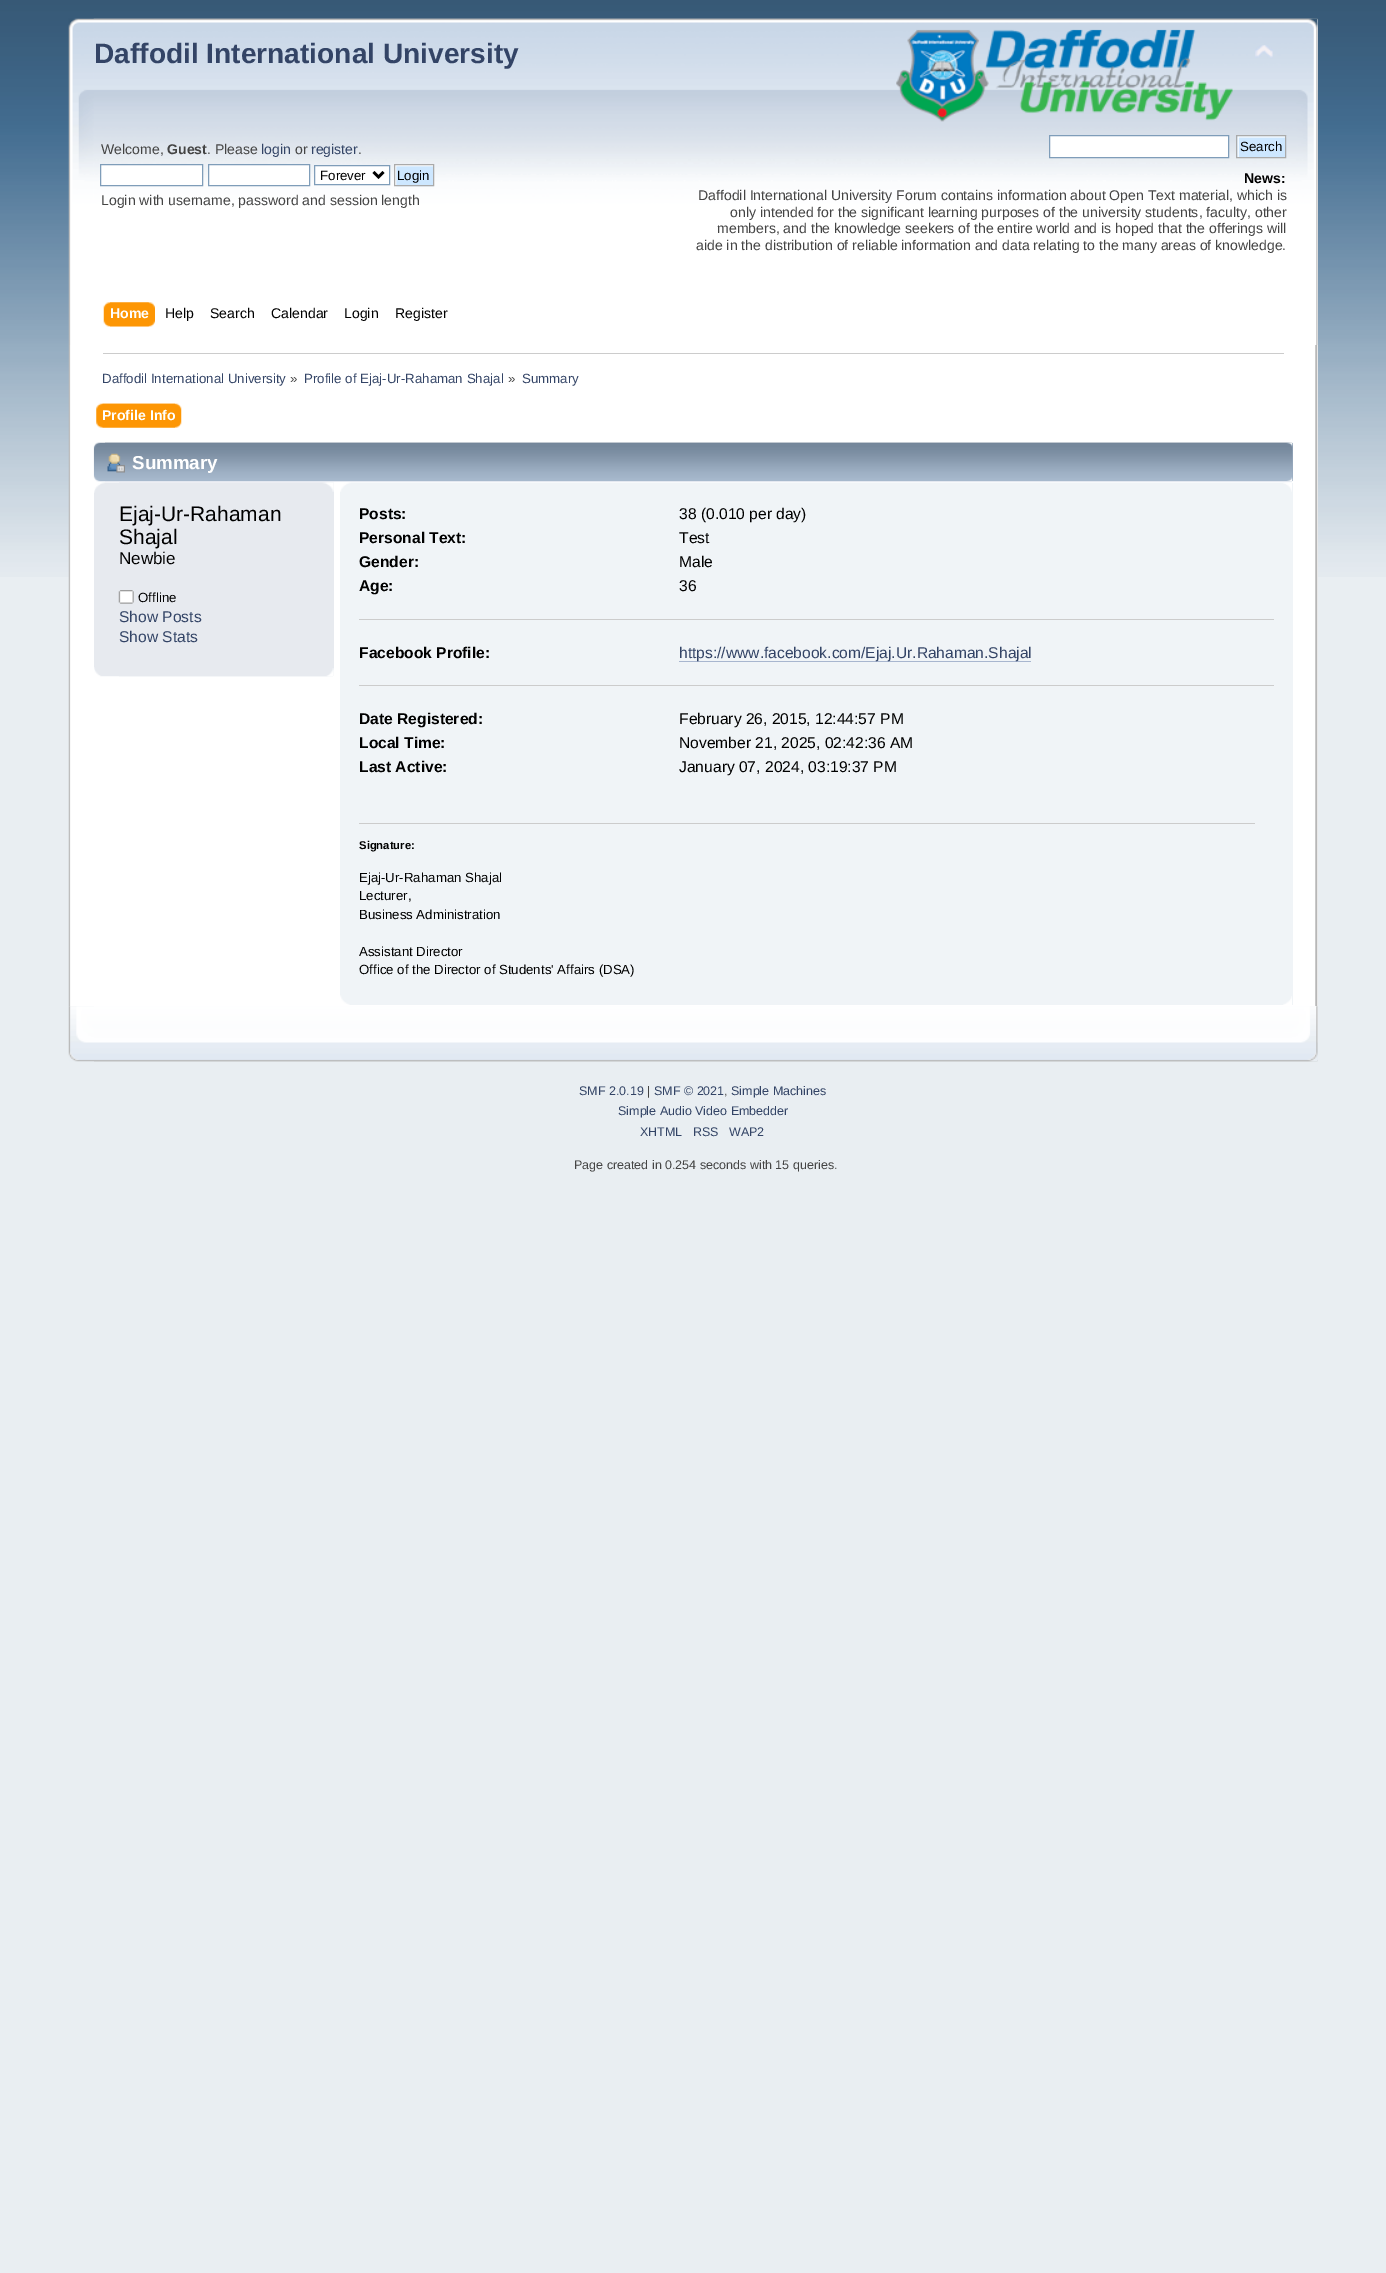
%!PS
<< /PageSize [1386 2273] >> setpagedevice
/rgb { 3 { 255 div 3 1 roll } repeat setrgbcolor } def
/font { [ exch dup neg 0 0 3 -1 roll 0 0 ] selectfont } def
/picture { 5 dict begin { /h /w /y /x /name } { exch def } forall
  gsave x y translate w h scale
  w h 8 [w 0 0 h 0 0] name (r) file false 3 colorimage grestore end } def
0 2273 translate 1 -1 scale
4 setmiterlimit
233 238 242 rgb
0 0 1386 2273 rectfill
(img/1.rgb) 0 0 1386 577 picture
(img/2.rgb) 68 18 1250 327 picture
(img/3.rgb) 93 18 1225 327 picture
(img/4.rgb) 896 29 337 93 picture
(img/5.rgb) 1255 45 18 13 picture
255 255 255 rgb
100.5 164.5 moveto 202.5 164.5 lineto 202.5 185.5 lineto 100.5 185.5 lineto closepath gsave fill grestore
127 157 185 rgb
stroke
255 255 255 rgb
208.5 164.5 moveto 309.5 164.5 lineto 309.5 185.5 lineto 208.5 185.5 lineto closepath gsave fill grestore
127 157 185 rgb
stroke
255 255 255 rgb
314.5 165.5 moveto 389.5 165.5 lineto 389.5 184.5 lineto 314.5 184.5 lineto closepath gsave fill grestore
127 157 185 rgb
stroke
0 0 0 rgb
2.5 setlinewidth
373.5 172 moveto 378.5 177 lineto 383.5 172 lineto stroke
(img/6.rgb) 395 165 39 22 picture
170 170 170 rgb
1 setlinewidth
394.5 164.5 39 21 rectstroke
255 255 255 rgb
1049.5 135.5 moveto 1228.5 135.5 lineto 1228.5 157.5 lineto 1049.5 157.5 lineto closepath gsave fill grestore
127 157 185 rgb
stroke
205 231 255 rgb
1237 136 48 21 rectfill
(img/7.rgb) 1237 136 50 22 picture
170 170 170 rgb
1236.5 135.5 49 22 rectstroke
(img/8.rgb) 110 302 45 25 picture
(img/9.rgb) 103 302 46 25 picture
255 255 255 rgb
1317 345 1 661 rectfill
(img/10.rgb) 68 345 1249 662 picture
(img/11.rgb) 94 345 1224 662 picture
204 204 204 rgb
103 353 1181 1 rectfill
(img/12.rgb) 102 403 80 25 picture
(img/13.rgb) 96 403 79 25 picture
153 171 191 rgb
1292 443 1 38 rectfill
(img/14.rgb) 93 442 1200 40 picture
(img/15.rgb) 105 442 1188 40 picture
(img/16.rgb) 107 453 18 20 picture
231 234 239 rgb
94 483 240 193 rectfill
(img/17.rgb) 94 482 240 11 picture
(img/18.rgb) 119 482 215 10 picture
(img/19.rgb) 118 590 16 14 picture
(img/20.rgb) 94 667 239 10 picture
(img/21.rgb) 119 668 215 9 picture
240 244 247 rgb
340 483 953 522 rectfill
(img/22.rgb) 340 482 952 10 picture
(img/23.rgb) 1283 482 9 10 picture
[
  [359 619 915 1 204 204 204]
  [359 685 915 1 204 204 204]
  [679 661 352 1 168 182 207]
  [359 823 896 1 204 204 204]
] { aload pop rgb rectfill } forall
(img/24.rgb) 340 995 10 10 picture
(img/25.rgb) 1283 996 9 9 picture
(img/26.rgb) 68 1006 1250 56 picture
(img/27.rgb) 94 1006 1224 56 picture
/LiberationSans-Bold 28.1 font
51 68 102 rgb
94 63 moveto (Daffodil International University) show
/LiberationSans-Regular 14.05 font
68 68 68 rgb
101 154 moveto (Welcome,) show
/LiberationSans-Bold 14.05 font
167 154 moveto (Guest) show
/LiberationSans-Regular 14.05 font
207 154 moveto (. Please) show
51 68 102 rgb
261 154 moveto (login) show
68 68 68 rgb
295 154 moveto (or) show
51 68 102 rgb
311 154 moveto (register) show
68 68 68 rgb
358 154 moveto (.) show
/LiberationSans-Regular 13.3 font
0 0 0 rgb
320 180 moveto (Forever) show
397 180 moveto (Login) show
/LiberationSans-Regular 14.05 font
68 68 68 rgb
101 205 moveto (Login with username, password and session length) show
/LiberationSans-Regular 13.3 font
0 0 0 rgb
1240 151 moveto (Search) show
/LiberationSans-Bold 14.05 font
1244 183 moveto (News:) show
/LiberationSans-Regular 14.05 font
68 68 68 rgb
[
  [(Daffodil International University Forum contains information about Open Text material, which is) 698 200]
  [(only intended for the significant learning purposes of the university students, faculty, other) 730 217]
  [(members, and the knowledge seekers of the entire world and is hoped that the offerings will) 717 233]
  [(aide in the distribution of reliable information and data relating to the many areas of knowledge.) 696 250]
] { aload pop moveto show } forall
/LiberationSans-Bold 14.05 font
255 255 255 rgb
110 318 moveto (Home) show
/LiberationSans-Regular 14.05 font
0 0 0 rgb
[
  [(Help) 165 318]
  [(Search) 210 318]
  [(Calendar) 271 318]
  [(Login) 344 318]
  [(Register) 395 318]
] { aload pop moveto show } forall
/LiberationSans-Regular 13.3 font
51 68 102 rgb
102 383 moveto (Daffodil International University) show
68 68 68 rgb
290 383 moveto (») show
51 68 102 rgb
304 383 moveto (Profile of Ejaj-Ur-Rahaman Shajal) show
68 68 68 rgb
508 383 moveto (») show
51 68 102 rgb
522 383 moveto (Summary) show
/LiberationSans-Bold 14.05 font
255 255 255 rgb
102 420 moveto (Profile Info) show
/LiberationSans-Bold 18.75 font
132 469 moveto (Summary) show
/LiberationSans-Regular 21 font
0 0 0 rgb
119 521 moveto (Ejaj-Ur-Rahaman) show
119 544 moveto (Shajal) show
/LiberationSans-Regular 17 font
119 564 moveto (Newbie) show
/LiberationSans-Regular 13.25 font
138 602 moveto (Offline) show
/LiberationSans-Regular 15.6 font
51 68 102 rgb
119 622 moveto (Show Posts) show
119 642 moveto (Show Stats) show
/LiberationSans-Bold 15.6 font
0 0 0 rgb
359 519 moveto (Posts:) show
/LiberationSans-Regular 15.6 font
679 519 moveto (38 \(0.010 per day\)) show
/LiberationSans-Bold 15.6 font
359 543 moveto (Personal Text:) show
/LiberationSans-Regular 15.6 font
679 543 moveto (Test) show
/LiberationSans-Bold 15.6 font
359 567 moveto (Gender:) show
/LiberationSans-Regular 15.6 font
679 567 moveto (Male) show
/LiberationSans-Bold 15.6 font
359 591 moveto (Age:) show
/LiberationSans-Regular 15.6 font
679 591 moveto (36) show
/LiberationSans-Bold 15.6 font
359 658 moveto (Facebook Profile:) show
/LiberationSans-Regular 15.6 font
51 68 102 rgb
679 658 moveto (https://www.facebook.com/Ejaj.Ur.Rahaman.Shajal) show
/LiberationSans-Bold 15.6 font
0 0 0 rgb
359 724 moveto (Date Registered:) show
/LiberationSans-Regular 15.6 font
679 724 moveto (February 26, 2015, 12:44:57 PM) show
/LiberationSans-Bold 15.6 font
359 748 moveto (Local Time:) show
/LiberationSans-Regular 15.6 font
679 748 moveto (November 21, 2025, 02:42:36 AM) show
/LiberationSans-Bold 15.6 font
359 772 moveto (Last Active:) show
/LiberationSans-Regular 15.6 font
679 772 moveto (January 07, 2024, 03:19:37 PM) show
/LiberationSans-Bold 11.25 font
359 849 moveto (Signature:) show
/LiberationSans-Regular 13.25 font
[
  [(Ejaj-Ur-Rahaman Shajal) 359 882]
  [(Lecturer,) 359 900]
  [(Business Administration) 359 919]
  [(Assistant Director) 359 956]
  [(Office of the Director of Students' Affairs \(DSA\)) 359 974]
] { aload pop moveto show } forall
/LiberationSans-Regular 12.5 font
51 68 102 rgb
579 1095 moveto (SMF 2.0.19) show
68 68 68 rgb
647 1095 moveto (|) show
51 68 102 rgb
654 1095 moveto (SMF © 2021) show
68 68 68 rgb
724 1095 moveto (,) show
51 68 102 rgb
[
  [(Simple Machines) 731 1095]
  [(Simple Audio Video Embedder) 618 1115]
  [(XHTML) 640 1136]
  [(RSS) 693 1136]
  [(WAP2) 729 1136]
] { aload pop moveto show } forall
68 68 68 rgb
574 1169 moveto (Page created in 0.254 seconds with 15 queries.) show
showpage
